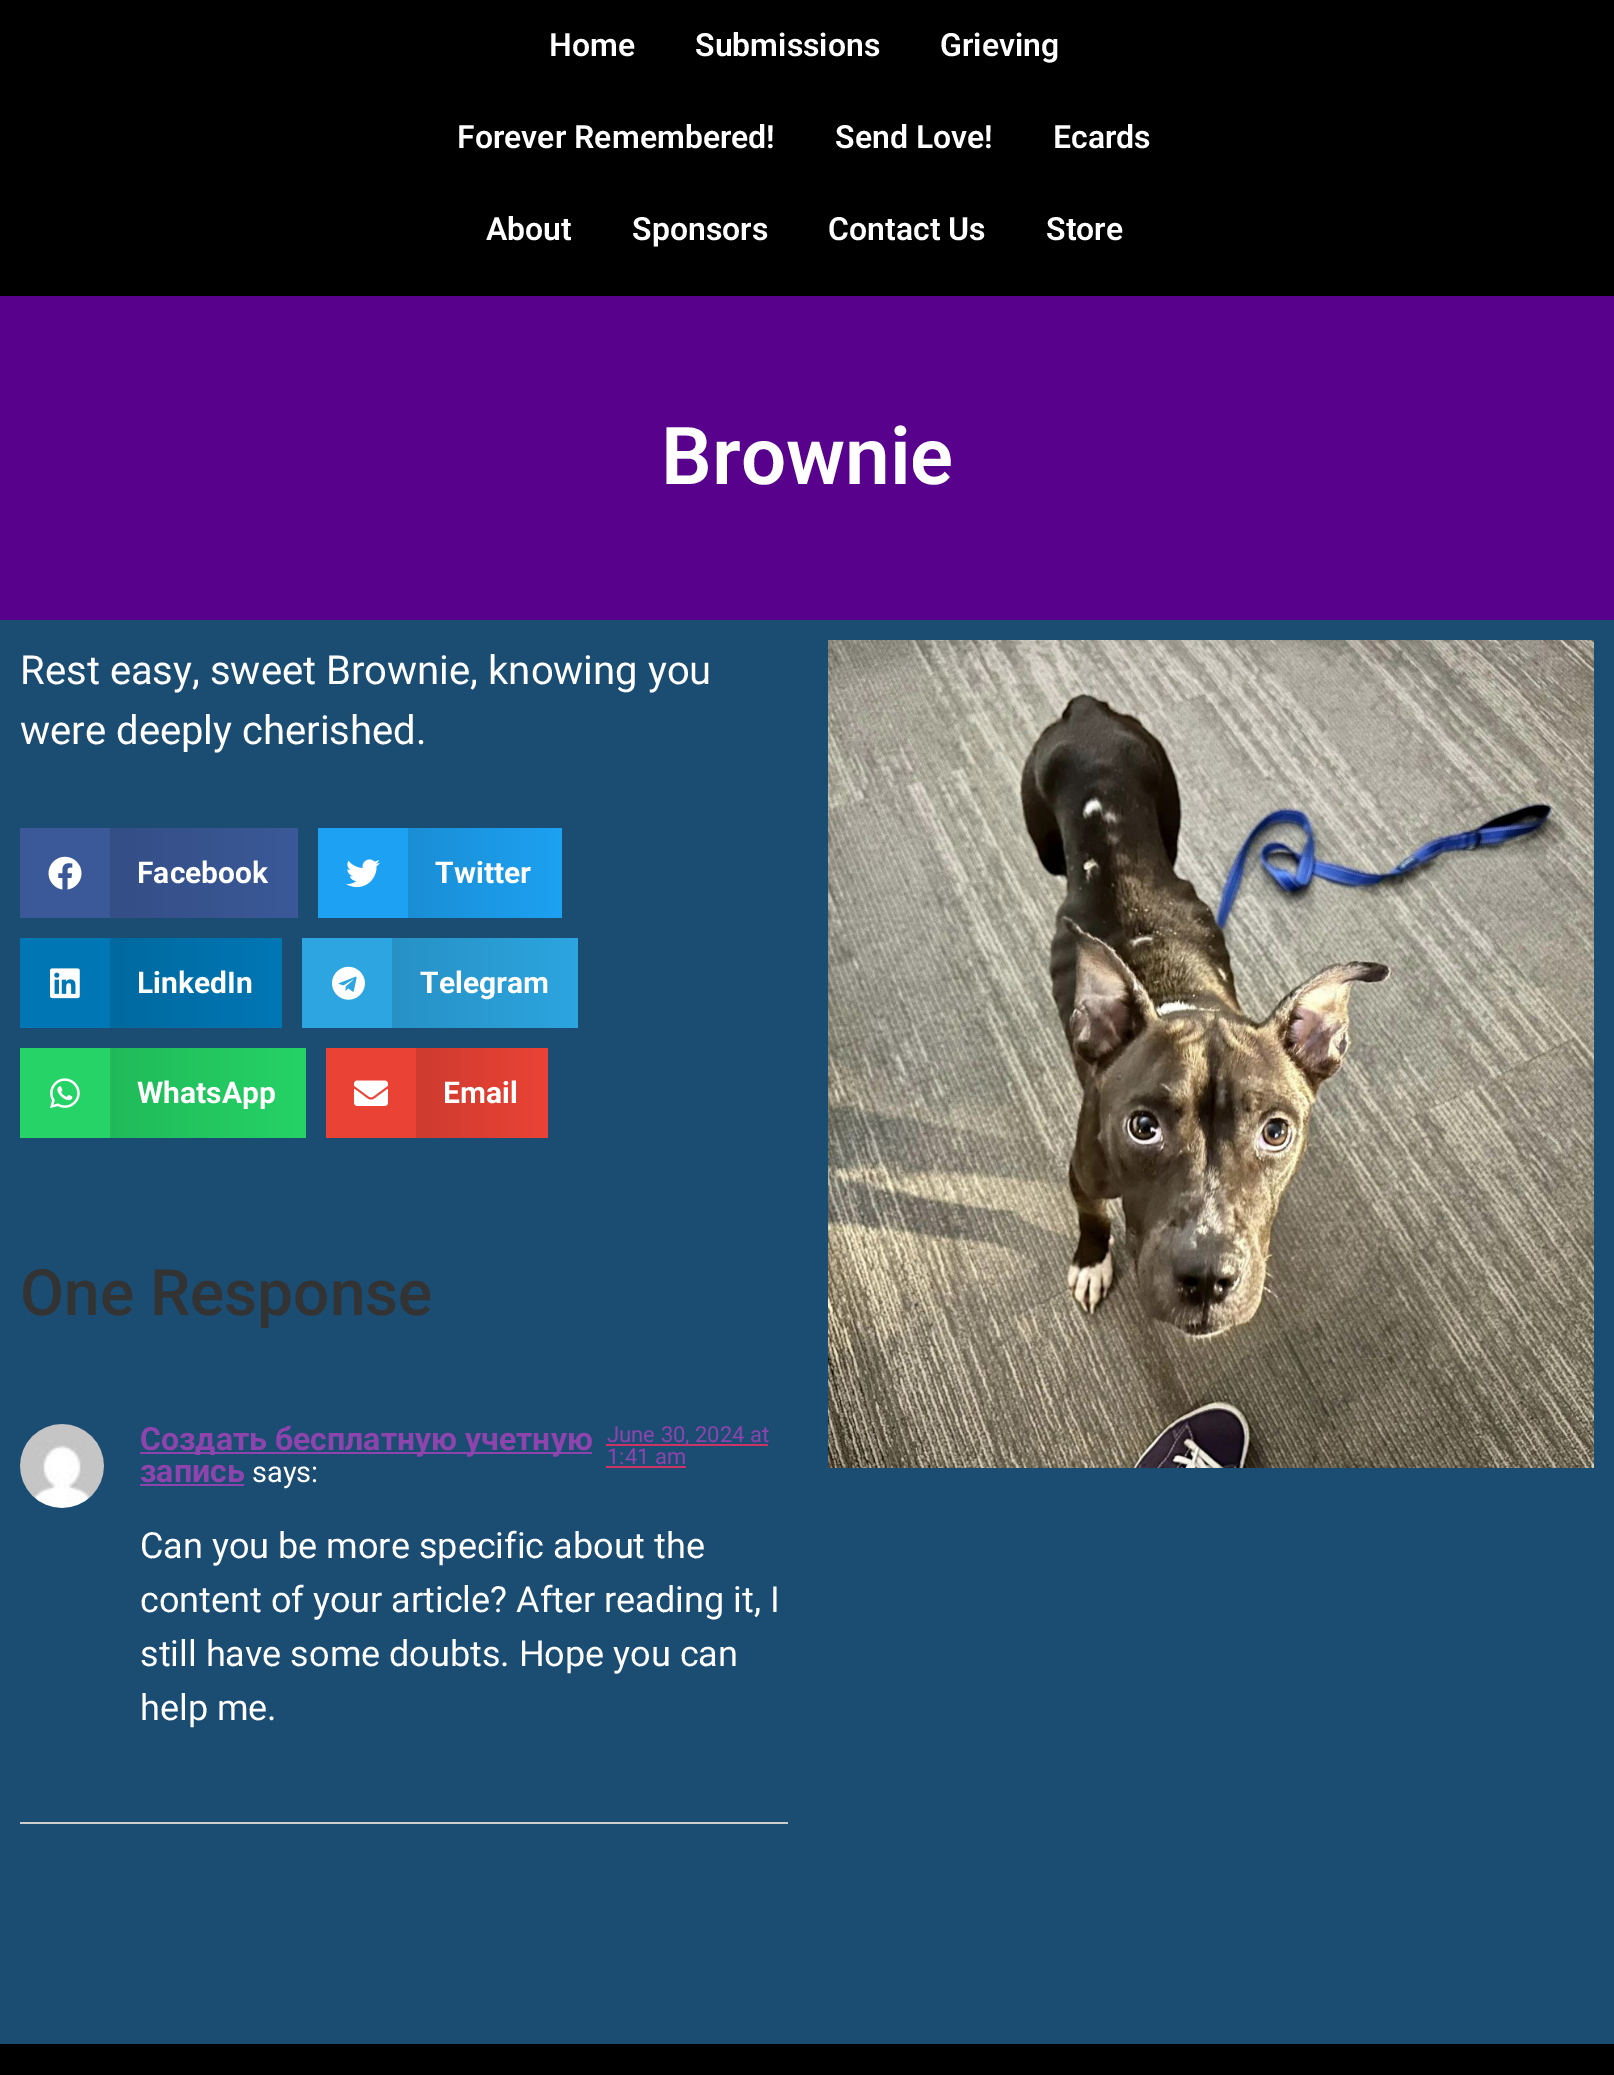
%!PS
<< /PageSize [1614 2075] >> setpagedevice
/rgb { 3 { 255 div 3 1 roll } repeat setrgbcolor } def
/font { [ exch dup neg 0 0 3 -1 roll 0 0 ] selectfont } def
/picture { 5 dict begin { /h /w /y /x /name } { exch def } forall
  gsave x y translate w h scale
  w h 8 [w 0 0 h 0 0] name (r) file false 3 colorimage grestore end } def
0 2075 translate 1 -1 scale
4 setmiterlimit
27 76 114 rgb
0 0 1614 2075 rectfill
[
  [0 0 1614 296 0 0 0]
  [0 296 1614 324 88 1 141]
  [20 828 90 90 59 89 152]
] { aload pop rgb rectfill } forall
(img/1.rgb) 48 856 34 34 picture
gsave 110 828 moveto 298 828 lineto 298 918 lineto 110 918 lineto closepath clip newpath
<< /ShadingType 2 /ColorSpace /DeviceRGB /Coords [110 873 298 873] /Extend [true true] /Function << /FunctionType 2 /Domain [0 1] /C0 [0.204 0.306 0.525] /C1 [0.231 0.349 0.596] /N 1 >> >> shfill grestore
29 161 242 rgb
318 828 90 90 rectfill
(img/2.rgb) 346 859 34 29 picture
gsave 408 828 moveto 562 828 lineto 562 918 lineto 408 918 lineto closepath clip newpath
<< /ShadingType 2 /ColorSpace /DeviceRGB /Coords [408 873 562 873] /Extend [true true] /Function << /FunctionType 2 /Domain [0 1] /C0 [0.102 0.557 0.835] /C1 [0.114 0.631 0.949] /N 1 >> >> shfill grestore
0 119 181 rgb
20 938 90 90 rectfill
(img/3.rgb) 50 968 30 31 picture
gsave 110 938 moveto 282 938 lineto 282 1028 lineto 110 1028 lineto closepath clip newpath
<< /ShadingType 2 /ColorSpace /DeviceRGB /Coords [110 983 282 983] /Extend [true true] /Function << /FunctionType 2 /Domain [0 1] /C0 [0 0.412 0.624] /C1 [0 0.467 0.71] /N 1 >> >> shfill grestore
44 165 224 rgb
302 938 90 90 rectfill
(img/4.rgb) 332 966 33 34 picture
gsave 392 938 moveto 578 938 lineto 578 1028 lineto 392 1028 lineto closepath clip newpath
<< /ShadingType 2 /ColorSpace /DeviceRGB /Coords [392 983 578 983] /Extend [true true] /Function << /FunctionType 2 /Domain [0 1] /C0 [0.153 0.569 0.773] /C1 [0.173 0.647 0.878] /N 1 >> >> shfill grestore
37 211 102 rgb
20 1048 90 90 rectfill
(img/5.rgb) 50 1078 30 31 picture
gsave 110 1048 moveto 306 1048 lineto 306 1138 lineto 110 1138 lineto closepath clip newpath
<< /ShadingType 2 /ColorSpace /DeviceRGB /Coords [110 1093 306 1093] /Extend [true true] /Function << /FunctionType 2 /Domain [0 1] /C0 [0.129 0.729 0.353] /C1 [0.145 0.827 0.4] /N 1 >> >> shfill grestore
234 67 53 rgb
326 1048 90 90 rectfill
(img/6.rgb) 354 1080 34 26 picture
gsave 416 1048 moveto 548 1048 lineto 548 1138 lineto 416 1138 lineto closepath clip newpath
<< /ShadingType 2 /ColorSpace /DeviceRGB /Coords [416 1093 548 1093] /Extend [true true] /Function << /FunctionType 2 /Domain [0 1] /C0 [0.808 0.231 0.184] /C1 [0.918 0.263 0.208] /N 1 >> >> shfill grestore
204 204 204 rgb
20 1822 768 2 rectfill
(img/7.rgb) 20 1424 84 84 picture
[
  [140 1452 452 2 142 68 173]
  [140 1484 104 2 142 68 173]
  [606 1444 162 2 204 51 102]
  [606 1466 80 2 204 51 102]
] { aload pop rgb rectfill } forall
(img/8.rgb) 828 640 766 828 picture
0 0 0 rgb
0 2044 1614 31 rectfill
/Roboto-SemiBold 32 font
255 255 255 rgb
[
  [(Home) 549 56]
  [(Submissions) 695 56]
  [(Grieving) 940 56]
  [(Forever Remembered!) 457 148]
  [(Send Love!) 835 148]
  [(Ecards) 1053 148]
  [(About) 486 240]
  [(Sponsors) 632 240]
  [(Contact Us) 828 240]
  [(Store) 1046 240]
] { aload pop moveto show } forall
/Roboto-SemiBold 80 font
661 484 moveto (Brownie) show
/Roboto-Regular 40 font
20 684 moveto (Rest easy, sweet Brownie, knowing you) show
20 744 moveto (were deeply cherished.) show
/Roboto-Bold 30 font
[
  [(Facebook) 137 883]
  [(Twitter) 435 883]
  [(LinkedIn) 137 993]
  [(Telegram) 420 993]
  [(WhatsApp) 137 1103]
  [(Email) 443 1103]
] { aload pop moveto show } forall
/Roboto-Medium 64 font
51 51 51 rgb
20 1315 moveto (One Response) show
/Roboto-Bold 32 font
142 68 173 rgb
140 1450 moveto (Создать бесплатную учетную) show
140 1482 moveto (запись) show
/Roboto-Regular 29 font
255 255 255 rgb
252 1482 moveto (says:) show
/Roboto-Regular 22 font
142 68 173 rgb
607 1442 moveto (June 30, 2024 at) show
607 1464 moveto (1:41 am) show
/Roboto-Regular 36 font
255 255 255 rgb
[
  [(Can you be more specific about the) 140 1558]
  [(content of your article? After reading it, I) 140 1612]
  [(still have some doubts. Hope you can) 140 1666]
  [(help me.) 140 1720]
] { aload pop moveto show } forall
showpage
